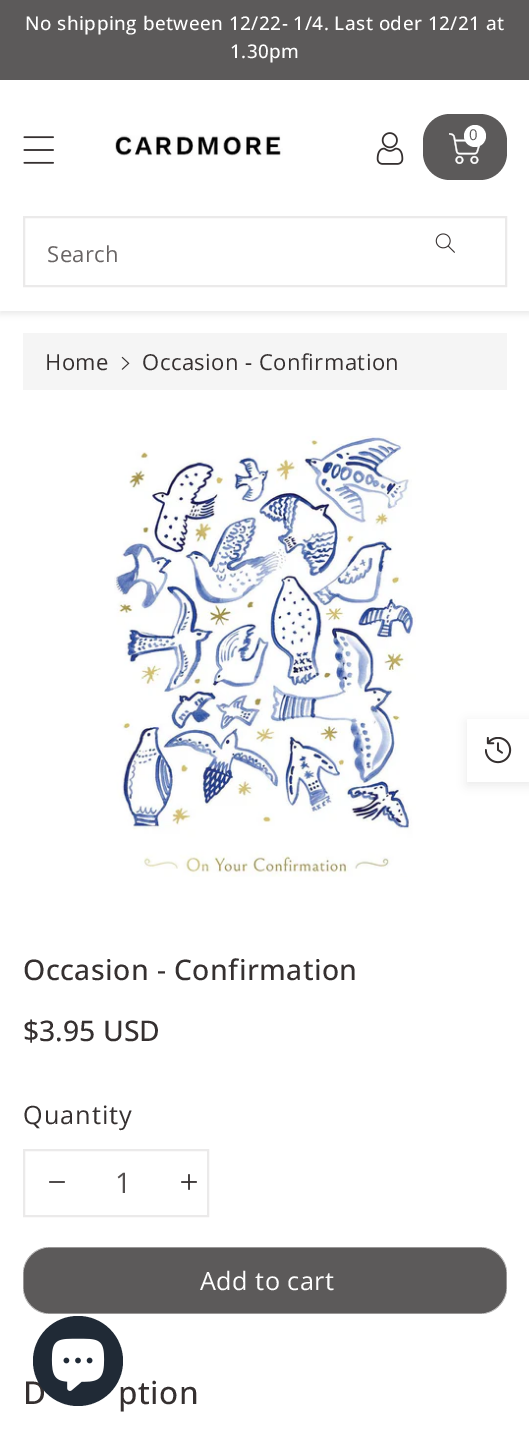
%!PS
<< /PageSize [529 1436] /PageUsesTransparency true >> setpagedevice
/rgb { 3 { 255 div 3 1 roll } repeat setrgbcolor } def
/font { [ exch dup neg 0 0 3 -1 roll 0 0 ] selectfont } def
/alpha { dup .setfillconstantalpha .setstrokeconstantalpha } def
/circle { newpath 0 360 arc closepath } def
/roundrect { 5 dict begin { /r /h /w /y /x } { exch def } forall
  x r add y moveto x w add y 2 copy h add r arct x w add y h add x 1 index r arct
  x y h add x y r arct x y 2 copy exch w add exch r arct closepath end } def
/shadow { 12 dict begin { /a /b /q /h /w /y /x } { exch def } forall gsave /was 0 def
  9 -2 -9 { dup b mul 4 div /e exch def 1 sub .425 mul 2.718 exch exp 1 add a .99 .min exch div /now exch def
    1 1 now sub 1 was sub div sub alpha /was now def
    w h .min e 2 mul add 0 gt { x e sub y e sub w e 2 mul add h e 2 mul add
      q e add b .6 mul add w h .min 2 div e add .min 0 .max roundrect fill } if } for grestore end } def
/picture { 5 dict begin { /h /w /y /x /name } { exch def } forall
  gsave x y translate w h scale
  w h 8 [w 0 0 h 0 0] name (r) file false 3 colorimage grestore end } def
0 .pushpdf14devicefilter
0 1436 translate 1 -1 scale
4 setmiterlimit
255 255 255 rgb
0 0 529 1436 rectfill
92 90 90 rgb
0 0 529 80 rectfill
53 48 48 rgb
0 83 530 231 0 3 0.1 shadow
255 255 255 rgb
0 80 529 231 rectfill
(img/1.rgb) 376 132 28 33 picture
92 90 90 rgb
423 114 84 66 27 roundrect fill
(img/2.rgb) 449 133 32 32 picture
255 255 255 rgb
475 136 11 circle fill
(img/3.rgb) 435 233 20 20 picture
235 234 234 rgb
2 setlinewidth
24 217 482 69 rectstroke
(img/4.rgb) 23 136 31 28 picture
(img/5.rgb) 115 135 168 21 picture
245 245 245 rgb
23 333 484 57 rectfill
(img/6.rgb) 121 356 9 14 picture
53 48 48 rgb
467 722 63 63 0 5 0.1 shadow
255 255 255 rgb
467 719 62 63 rectfill
(img/7.rgb) 485 737 27 27 picture
(img/8.rgb) 114 436 302 441 picture
(img/9.rgb) 49 1181 16 2 picture
(img/10.rgb) 181 1174 16 16 picture
235 234 234 rgb
24 1150 184 66 rectstroke
92 90 90 rgb
23 1247 484 67 27 roundrect fill
0.7 alpha
255 255 255 rgb
0.4 setlinewidth
23.2 1247.2 483.6 66.6 26.8 roundrect stroke
/OpenSans-Medium 18.9 font
1 alpha
25 30 moveto 0.45 0 (No shipping between 12/22- 1/4. Last oder 12/21 at) ashow
230 58 moveto 0.45 0 (1.30pm) ashow
/OpenSans-Regular 15 font
92 90 90 rgb
469 140 moveto 0.45 0 (0) ashow
/OpenSans-Regular 22 font
104 100 100 rgb
47 262 moveto 0.45 0 (Search) ashow
53 48 48 rgb
45 370 moveto 0.45 0 (Home) ashow
142 370 moveto 0.45 0 (Occasion - Confirmation) ashow
/OpenSans-Medium 28.4 font
23 980 moveto 0.45 0 (Occasion - Confirmation) ashow
23 1041 moveto ($3.95 USD) show
/OpenSans-Regular 25.25 font
23 1124 moveto 1 0 (Quantity) ashow
/OpenSans-Regular 28.4 font
83 79 79 rgb
115 1193 moveto (1) show
/OpenSans-Regular 25.25 font
255 255 255 rgb
200 1290 moveto 0.45 0 (Add to cart) ashow
/OpenSans-Medium 31.5 font
53 48 48 rgb
23 1404 moveto 0.45 0 (D) ashow
118 1404 moveto 0.45 0 (ption) ashow
32 42 54 rgb
78 1361 45 circle fill
(img/11.rgb) 51 1338 54 53 picture
.poppdf14devicefilter showpage
